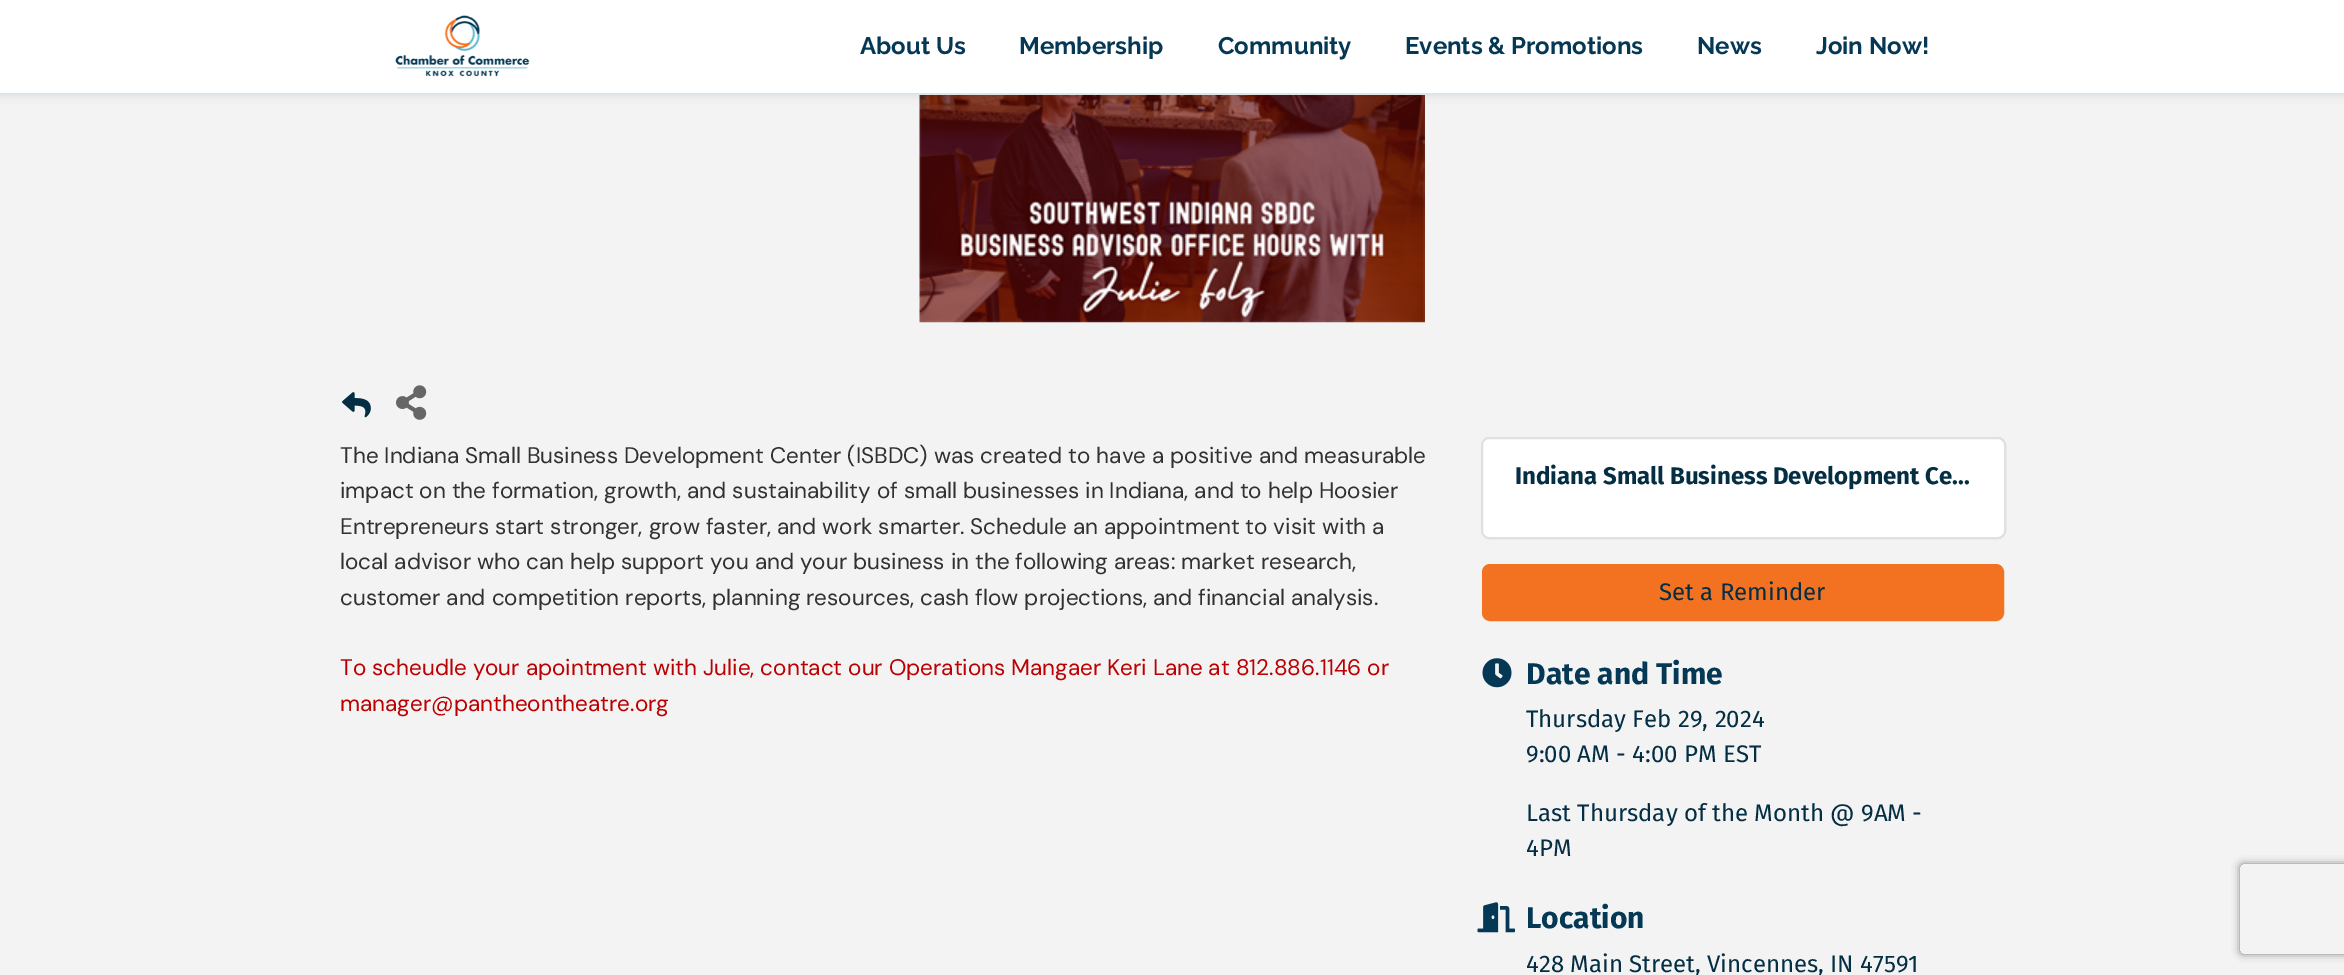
%!PS
<< /PageSize [2344 975] /PageUsesTransparency true >> setpagedevice
/rgb { 3 { 255 div 3 1 roll } repeat setrgbcolor } def
/font { [ exch dup neg 0 0 3 -1 roll 0 0 ] selectfont } def
/alpha { dup .setfillconstantalpha .setstrokeconstantalpha } def
/roundrect { 5 dict begin { /r /h /w /y /x } { exch def } forall
  x r add y moveto x w add y 2 copy h add r arct x w add y h add x 1 index r arct
  x y h add x y r arct x y 2 copy exch w add exch r arct closepath end } def
/shadow { 12 dict begin { /a /b /q /h /w /y /x } { exch def } forall gsave /was 0 def
  9 -2 -9 { dup b mul 4 div /e exch def 1 sub .425 mul 2.718 exch exp 1 add a .99 .min exch div /now exch def
    1 1 now sub 1 was sub div sub alpha /was now def
    w h .min e 2 mul add 0 gt { x e sub y e sub w e 2 mul add h e 2 mul add
      q e add b .6 mul add w h .min 2 div e add .min 0 .max roundrect fill } if } for grestore end } def
/picture { 5 dict begin { /h /w /y /x /name } { exch def } forall
  gsave x y translate w h scale
  w h 8 [w 0 0 h 0 0] name (r) file false 3 colorimage grestore end } def
0 .pushpdf14devicefilter
0 975 translate 1 -1 scale
4 setmiterlimit
243 243 243 rgb
0 0 2344 975 rectfill
(img/2.rgb) 919 95 506 228 picture
0 0 0 rgb
0 0 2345 95 0 5 0.1 shadow
255 255 255 rgb
0 0 2344 93 rectfill
222 229 233 rgb
0 93 2344 2 rectfill
(img/1.rgb) 395 15 135 62 picture
(img/3.rgb) 342 392 29 26 picture
(img/4.rgb) 396 385 31 35 picture
255 255 255 rgb
1481 437 525 102 8 roundrect fill
0.12 alpha
0 0 0 rgb
2 setlinewidth
1482 438 523 100 7 roundrect stroke
1 alpha
243 114 33 rgb
1483 565 520 55 7 roundrect gsave fill grestore
stroke
(img/5.rgb) 1482 658 30 30 picture
(img/6.rgb) 1477 902 38 31 picture
gsave
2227 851 moveto 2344 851 lineto 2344 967 lineto 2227 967 lineto closepath 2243 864 moveto 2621 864 lineto 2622.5 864 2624 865.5 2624 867 curveto 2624 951 lineto 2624 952.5 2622.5 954 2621 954 curveto 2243 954 lineto 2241.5 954 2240 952.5 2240 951 curveto 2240 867 lineto 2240 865.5 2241.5 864 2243 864 curveto closepath eoclip newpath
128 128 128 rgb
2240 864 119 90 3 4 1 shadow
grestore
/Raleway-Thin 24 font
4 56 85 rgb
[
  [(About Us) 860 54]
  [(Membership) 1019 54]
  [(Community) 1218 54]
  [(Events & Promotions) 1405 54]
  [(News) 1697 54]
  [(Join Now!) 1816 54]
] { aload pop moveto show } forall
/DMSans-Regular 22.5 font
49 49 49 rgb
[
  [(The Indiana Small Business Development Center \(ISBDC\) was created to have a positive and measurable) 340 463]
  [(impact on the formation, growth, and sustainability of small businesses in Indiana, and to help Hoosier) 340 498]
  [(Entrepreneurs start stronger, grow faster, and work smarter. Schedule an appointment to visit with a) 340 534]
  [(local advisor who can help support you and your business in the following areas: market research,) 340 569]
  [(customer and competition reports, planning resources, cash flow projections, and financial analysis.) 340 605]
] { aload pop moveto show } forall
186 0 0 rgb
340 675 moveto (To scheudle your apointment with Julie, contact our Operations Mangaer Keri Lane at 812.886.1146 or) show
340 711 moveto (manager@pantheontheatre.org) show
/FiraSans-Bold 24 font
3 46 68 rgb
1515 484 moveto (Indiana Small Business Development Ce...) show
/FiraSans-Regular 24 font
1659 600 moveto (Set a Reminder) show
/FiraSans-Bold 30 font
4 56 85 rgb
1526 684 moveto (Date and Time) show
/FiraSans-Regular 24 font
3 46 68 rgb
[
  [(Thursday Feb 29, 2024) 1526 727]
  [(9:00 AM - 4:00 PM EST) 1526 762]
  [(Last Thursday of the Month @ 9AM -) 1526 821]
  [(4PM) 1526 856]
] { aload pop moveto show } forall
/FiraSans-Bold 30 font
4 56 85 rgb
1526 928 moveto (Location) show
/FiraSans-Regular 24 font
3 46 68 rgb
1526 972 moveto (428 Main Street, Vincennes, IN 47591) show
.poppdf14devicefilter showpage
